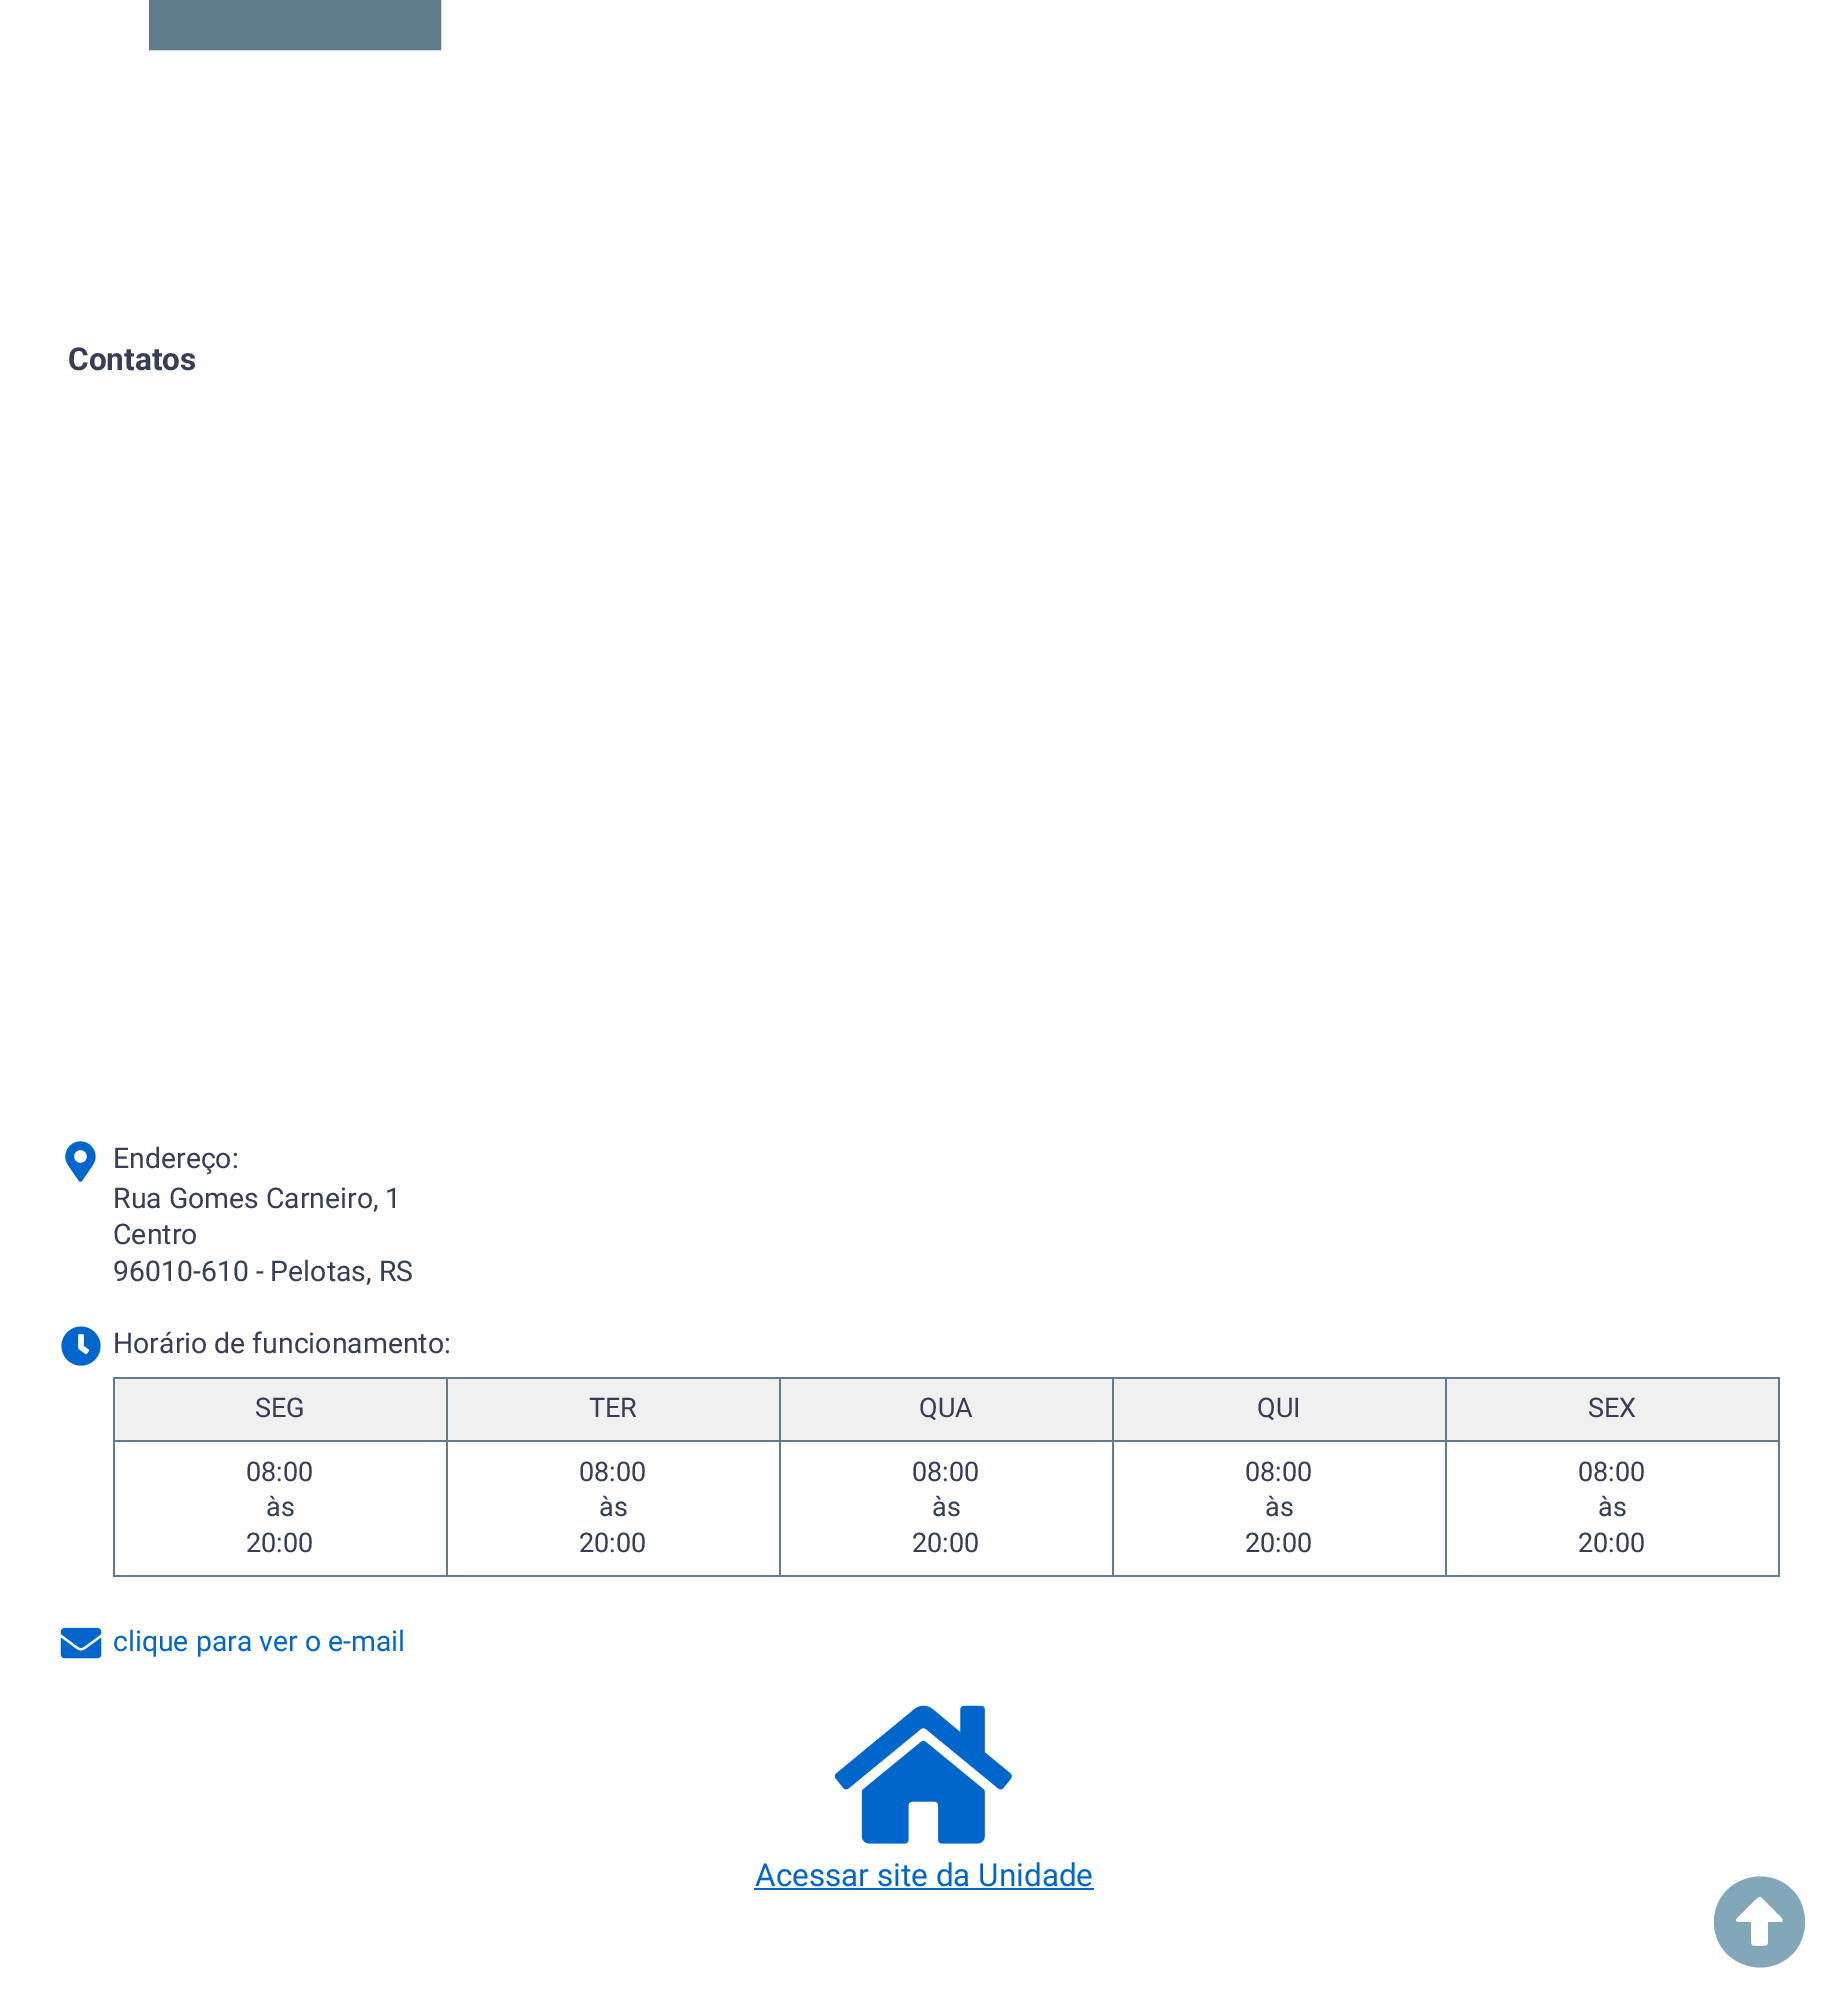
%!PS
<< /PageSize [1847 2012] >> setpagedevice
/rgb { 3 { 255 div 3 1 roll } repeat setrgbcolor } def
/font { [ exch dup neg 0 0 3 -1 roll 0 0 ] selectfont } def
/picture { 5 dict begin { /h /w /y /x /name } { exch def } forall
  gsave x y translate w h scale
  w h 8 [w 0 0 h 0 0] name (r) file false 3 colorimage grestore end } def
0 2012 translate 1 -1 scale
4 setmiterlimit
255 255 255 rgb
0 0 1847 2012 rectfill
96 125 139 rgb
5 setlinewidth
151.5 -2.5 287 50 rectstroke
154 0 282 45 rectfill
(img/1.rgb) 65 1141 31 41 picture
(img/2.rgb) 61 1326 40 40 picture
[
  [113 1377 1667 2 96 125 139]
  [1778 1377 2 200 96 125 139]
  [113 1575 1667 2 96 125 139]
  [113 1377 2 200 96 125 139]
  [115 1379 331 61 240 240 240]
  [448 1379 331 61 240 240 240]
  [1445 1440 335 2 96 125 139]
  [1445 1440 2 137 96 125 139]
  [1112 1440 335 2 96 125 139]
  [1112 1440 2 137 96 125 139]
  [779 1440 335 2 96 125 139]
  [779 1440 2 137 96 125 139]
  [446 1440 335 2 96 125 139]
  [446 1440 2 137 96 125 139]
  [113 1440 335 2 96 125 139]
  [446 1377 2 65 96 125 139]
  [781 1379 331 61 240 240 240]
  [779 1377 2 65 96 125 139]
  [1114 1379 331 61 240 240 240]
  [1112 1377 2 65 96 125 139]
  [1447 1379 331 61 240 240 240]
  [1445 1377 2 65 96 125 139]
] { aload pop rgb rectfill } forall
(img/3.rgb) 60 1627 42 32 picture
(img/4.rgb) 834 1705 178 139 picture
0 102 204 rgb
754 1888 340 2 rectfill
130 167 185 rgb
1714 1922 moveto 1714 1879 1769 1860 1796 1894 curveto 1802 1902 1805 1912 1805 1922 curveto 1805 1932 1802 1942 1796 1950 curveto 1769 1984 1714 1965 1714 1922 curveto closepath 1768 1943 moveto 1768 1922 lineto 1782 1922 lineto 1785 1920 1780 1916 1779 1915 curveto 1768 1904 lineto 1760 1896 1761 1894 1754 1901 curveto 1736 1919 lineto 1734 1923 1741 1922 1743 1922 curveto 1751 1922 lineto 1751 1940 lineto 1751 1945 1751 1946 1756 1946 curveto 1763 1946 lineto 1765 1946 1768 1946 1768 1943 curveto closepath fill
/Roboto-Bold 31.5 font
55 61 87 rgb
68 370 moveto (Contatos) show
/Roboto-Regular 28.4 font
[
  [(Endereço:) 113 1168]
  [(Rua Gomes Carneiro, 1) 113 1208]
  [(Centro) 113 1244]
  [(96010-610 - Pelotas, RS) 113 1281]
  [(Horário de funcionamento:) 113 1353]
] { aload pop moveto show } forall
/Roboto-Regular 27 font
[
  [(SEG) 255 1417]
  [(TER) 589 1417]
  [(QUA) 919 1417]
  [(QUI) 1257 1417]
  [(SEX) 1588 1417]
  [(08:00) 246 1481]
  [(às) 266 1516]
  [(20:00) 246 1552]
  [(08:00) 579 1481]
  [(às) 599 1516]
  [(20:00) 579 1552]
  [(08:00) 912 1481]
  [(às) 932 1516]
  [(20:00) 912 1552]
  [(08:00) 1245 1481]
  [(às) 1265 1516]
  [(20:00) 1245 1552]
  [(08:00) 1578 1481]
  [(às) 1598 1516]
  [(20:00) 1578 1552]
] { aload pop moveto show } forall
/Roboto-Regular 28.4 font
0 102 204 rgb
113 1651 moveto (clique para ver o e-mail) show
/Roboto-Regular 31.5 font
755 1886 moveto (Acessar site da Unidade) show
showpage
